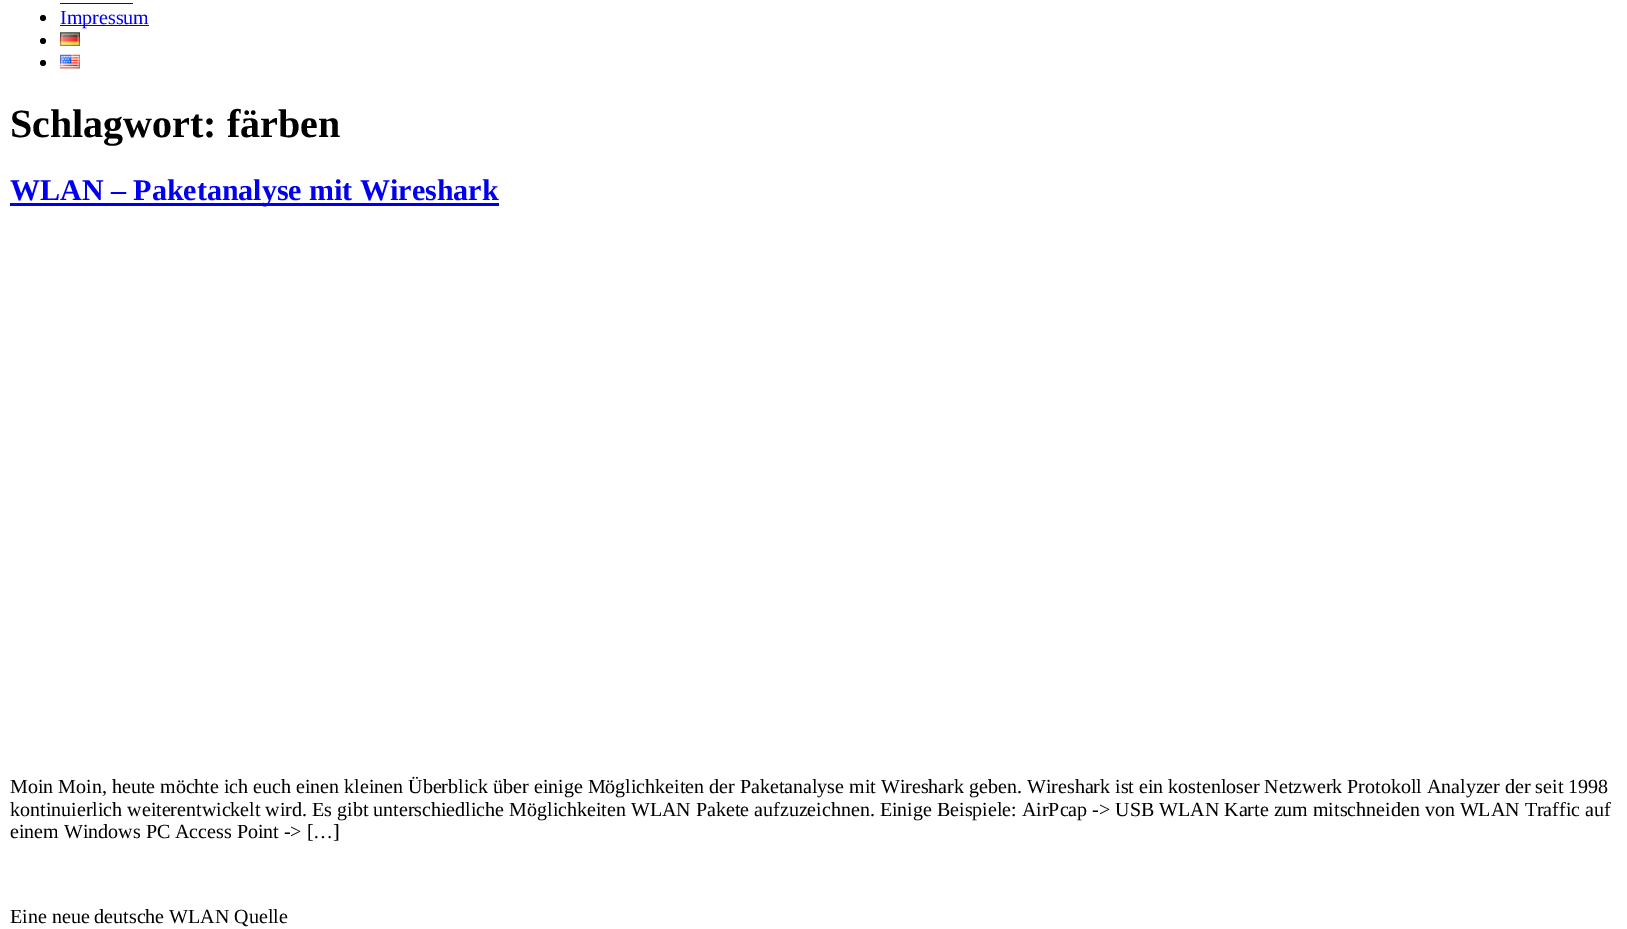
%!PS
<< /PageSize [1627 929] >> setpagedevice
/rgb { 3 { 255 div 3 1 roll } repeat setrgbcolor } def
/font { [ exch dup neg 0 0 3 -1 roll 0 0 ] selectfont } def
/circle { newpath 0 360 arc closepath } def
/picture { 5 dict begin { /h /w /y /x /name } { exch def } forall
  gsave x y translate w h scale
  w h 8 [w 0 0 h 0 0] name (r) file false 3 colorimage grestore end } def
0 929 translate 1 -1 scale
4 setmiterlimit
255 255 255 rgb
0 0 1627 929 rectfill
0 0 238 rgb
60 3 73 1 rectfill
0 0 0 rgb
43 18 3 circle fill
0 0 238 rgb
60 25 89 1 rectfill
0 0 0 rgb
43 41 3 circle fill
(img/1.rgb) 60 32 20 14 picture
43 63 3 circle fill
(img/2.rgb) 60 54 20 15 picture
0 0 238 rgb
10 203 489 3 rectfill
/LiberationSerif-Regular 20 font
60 24 moveto (Impressum) show
/LiberationSerif-Bold 40 font
0 0 0 rgb
10 137 moveto (Schlagwort: färben) show
/LiberationSerif-Bold 30 font
0 0 238 rgb
10 200 moveto (WLAN – Paketanalyse mit Wireshark) show
/LiberationSerif-Regular 20 font
0 0 0 rgb
[
  [(Moin Moin, heute möchte ich euch einen kleinen Überblick über einige Möglichkeiten der Paketanalyse mit Wireshark geben. Wireshark ist ein kostenloser Netzwerk Protokoll Analyzer der seit 1998) 10 793]
  [(kontinuierlich weiterentwickelt wird. Es gibt unterschiedliche Möglichkeiten WLAN Pakete aufzuzeichnen. Einige Beispiele: AirPcap -> USB WLAN Karte zum mitschneiden von WLAN Traffic auf) 10 816]
  [(einem Windows PC Access Point -> […]) 10 838]
  [(Eine neue deutsche WLAN Quelle) 10 923]
] { aload pop moveto show } forall
showpage
